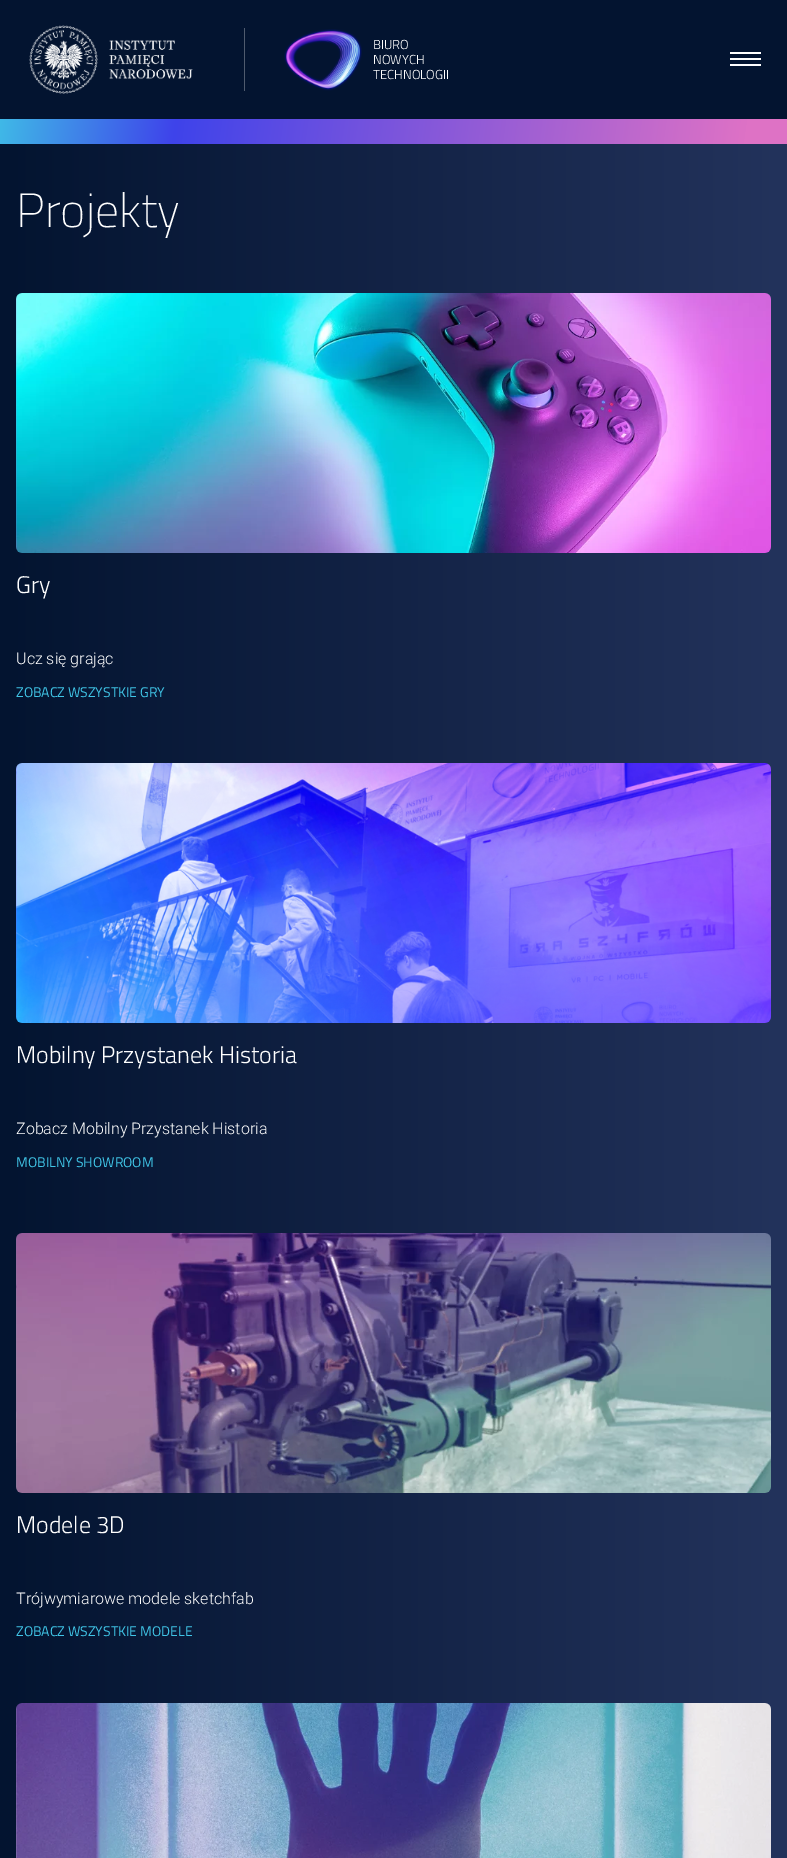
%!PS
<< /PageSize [787 1858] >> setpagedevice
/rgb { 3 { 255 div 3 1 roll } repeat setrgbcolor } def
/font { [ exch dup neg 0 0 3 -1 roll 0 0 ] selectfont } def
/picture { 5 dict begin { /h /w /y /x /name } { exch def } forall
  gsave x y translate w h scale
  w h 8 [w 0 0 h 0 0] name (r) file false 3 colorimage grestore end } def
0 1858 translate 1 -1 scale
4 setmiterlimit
255 255 255 rgb
0 0 787 1858 rectfill
gsave 0 144 moveto 787 144 lineto 787 1858 lineto 0 1858 lineto closepath clip newpath
<< /ShadingType 2 /ColorSpace /DeviceRGB /Coords [0 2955 787 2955] /Extend [true true] /Function << /FunctionType 2 /Domain [0 1] /C0 [0.012 0.078 0.188] /C1 [0.137 0.2 0.361] /N 1 >> >> shfill grestore
3 20 48 rgb
0 0 787 119 rectfill
(img/1.rgb) 29 25 164 69 picture
79 91 110 rgb
244 28 1 63 rectfill
(img/2.rgb) 284 29 78 62 picture
[
  [730 52 31 2 255 255 255]
  [730 58 31 2 255 255 255]
  [730 64 31 2 255 255 255]
] { aload pop rgb rectfill } forall
gsave 0 119 moveto 787 119 lineto 787 144 lineto 0 144 lineto closepath clip newpath
<< /ShadingType 2 /ColorSpace /DeviceRGB /Coords [-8 47 785 159] /Extend [true true] /Function << /FunctionType 3 /Domain [0 1] /Functions [<< /FunctionType 2 /Domain [0 1] /C0 [0.251 0.773 0.906] /C1 [0.243 0.263 0.918] /N 1 >> << /FunctionType 2 /Domain [0 1] /C0 [0.243 0.263 0.918] /C1 [0.871 0.447 0.773] /N 1 >> << /FunctionType 2 /Domain [0 1] /C0 [0.871 0.447 0.773] /C1 [0.871 0.447 0.773] /N 1 >>] /Bounds [0.24 0.95] /Encode [0 1 0 1 0 1] >> >> shfill grestore
(img/3.rgb) 16 293 755 260 picture
(img/4.rgb) 16 763 755 260 picture
(img/5.rgb) 16 1233 755 260 picture
(img/6.rgb) 16 1703 755 155 picture
/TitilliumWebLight-Light 13 font
[
  [(BIURO) 373 49]
  [(NOWYCH) 373 64]
  [(TECHNOLOGII) 373 79]
] { aload pop moveto show } forall
/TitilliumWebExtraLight-ExtraLight 48 font
16 227 moveto (Projekty) show
/TitilliumWebLight-Light 24 font
16 593 moveto (Gry) show
/Roboto-Light 16 font
16 664 moveto (Ucz się grając) show
/TitilliumWeb-Regular 14 font
64 197 231 rgb
16 697 moveto (ZOBACZ WSZYSTKIE GRY) show
/TitilliumWebLight-Light 24 font
255 255 255 rgb
16 1063 moveto (Mobilny Przystanek Historia) show
/Roboto-Light 16 font
16 1134 moveto (Zobacz Mobilny Przystanek Historia) show
/TitilliumWeb-Regular 14 font
64 197 231 rgb
16 1167 moveto (MOBILNY SHOWROOM) show
/TitilliumWebLight-Light 24 font
255 255 255 rgb
16 1533 moveto (Modele 3D) show
/Roboto-Light 16 font
16 1604 moveto (Trójwymiarowe modele sketchfab) show
/TitilliumWeb-Regular 14 font
64 197 231 rgb
16 1636 moveto (ZOBACZ WSZYSTKIE MODELE) show
showpage
